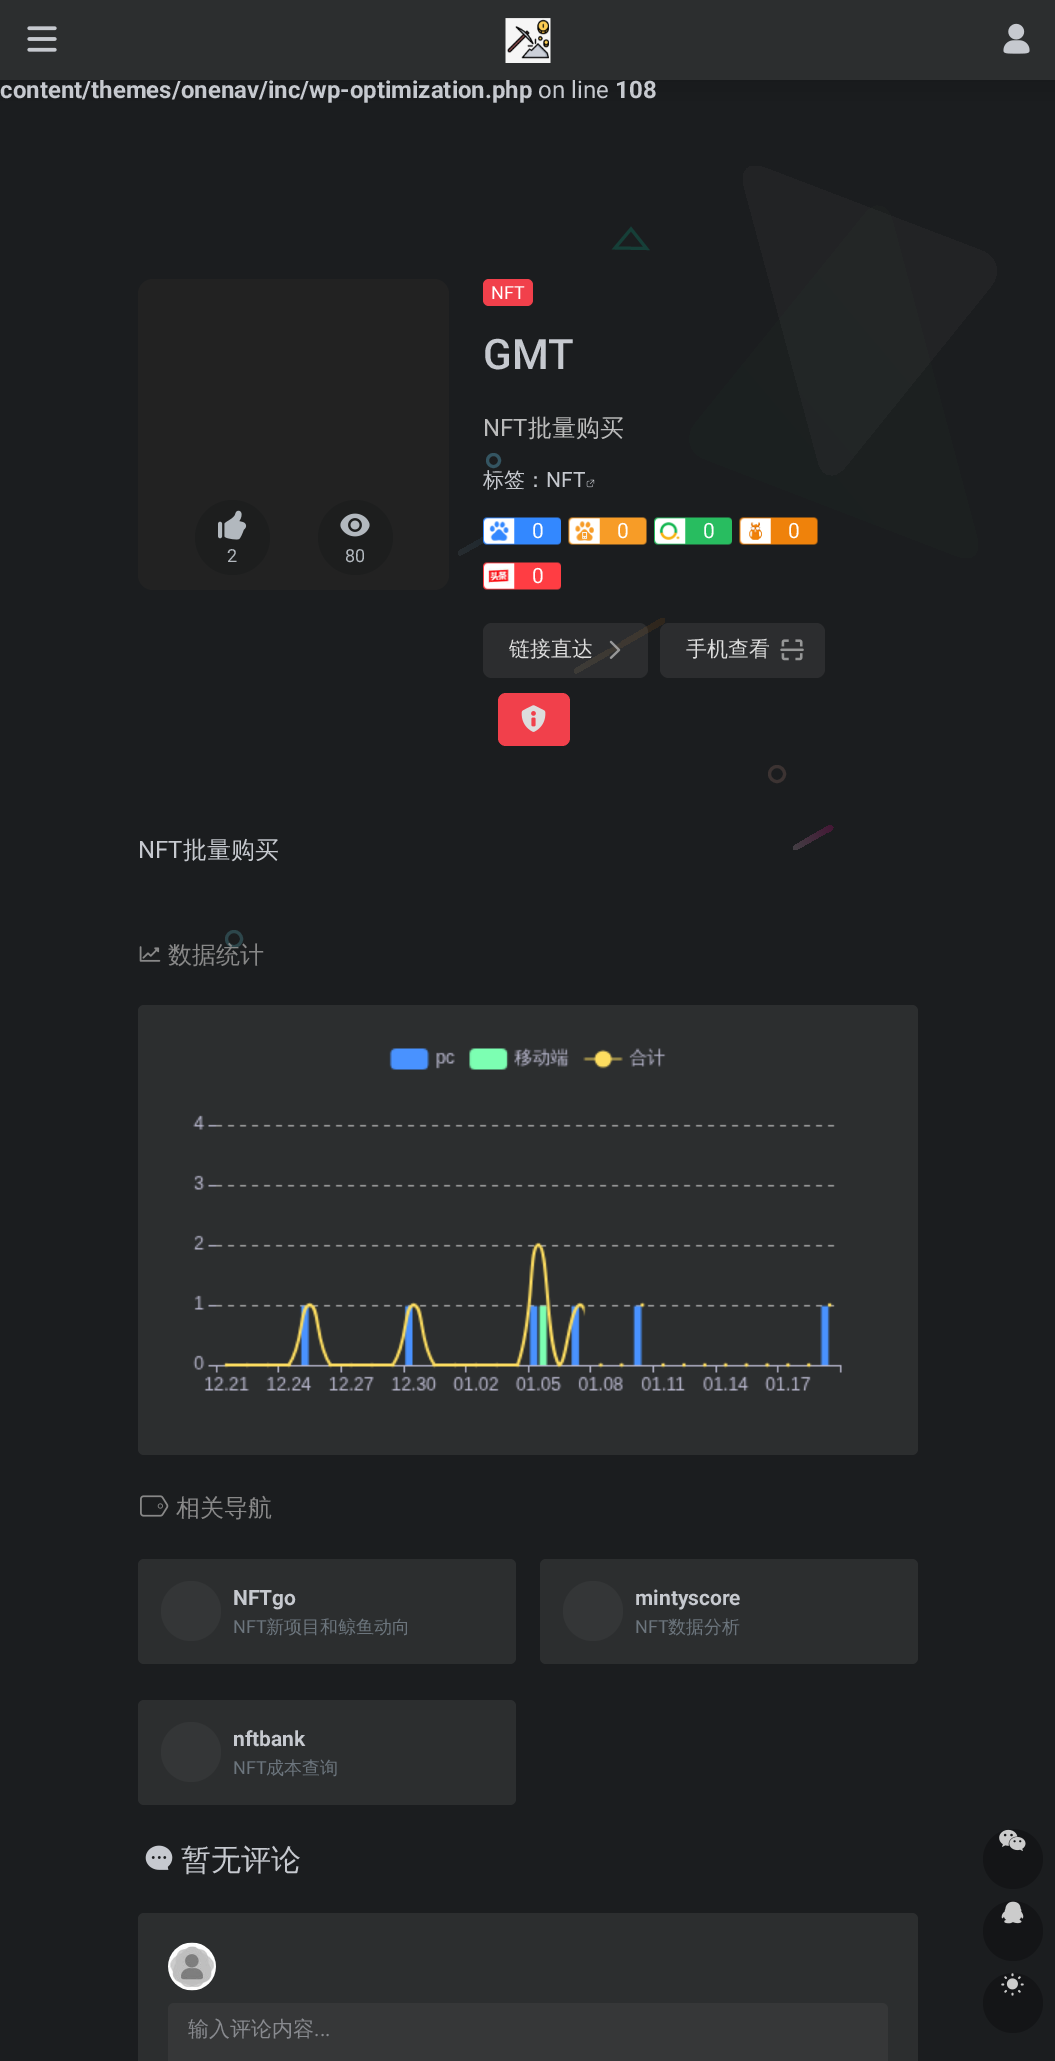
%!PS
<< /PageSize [1055 2061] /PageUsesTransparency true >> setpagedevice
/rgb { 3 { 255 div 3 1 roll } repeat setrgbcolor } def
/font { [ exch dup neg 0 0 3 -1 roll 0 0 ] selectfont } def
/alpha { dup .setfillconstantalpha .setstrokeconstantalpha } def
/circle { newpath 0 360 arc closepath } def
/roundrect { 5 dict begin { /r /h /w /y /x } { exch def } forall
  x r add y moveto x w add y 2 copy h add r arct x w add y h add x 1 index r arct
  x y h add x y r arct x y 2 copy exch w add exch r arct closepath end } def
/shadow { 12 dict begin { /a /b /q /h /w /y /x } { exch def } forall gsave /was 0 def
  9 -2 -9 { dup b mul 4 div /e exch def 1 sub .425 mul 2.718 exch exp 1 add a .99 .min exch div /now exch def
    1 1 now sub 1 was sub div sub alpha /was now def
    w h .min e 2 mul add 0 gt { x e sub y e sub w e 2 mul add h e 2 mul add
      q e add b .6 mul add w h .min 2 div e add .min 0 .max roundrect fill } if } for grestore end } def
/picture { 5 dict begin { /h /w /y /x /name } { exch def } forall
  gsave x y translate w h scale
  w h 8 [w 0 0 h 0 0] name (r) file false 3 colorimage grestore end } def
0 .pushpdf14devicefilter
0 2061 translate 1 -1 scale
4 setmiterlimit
27 29 31 rgb
0 0 1055 2061 rectfill
10 10 10 rgb
-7 -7 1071 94 0 19 0.25 shadow
44 46 47 rgb
0 0 1055 80 rectfill
(img/1.rgb) 27 26 30 26 picture
(img/2.rgb) 505 18 46 45 picture
(img/3.rgb) 1003 23 27 31 picture
gsave 818 461 moveto 744 186 lineto 740 170 749 162 765 168 curveto 982 251 lineto 997 257 1001 273 991 286 curveto 845 467 lineto 834 480 822 477 818 461 curveto closepath eoclip newpath
<< /ShadingType 2 /ColorSpace /DeviceRGB /Coords [932 166 711 329] /Extend [true true] /Function << /FunctionType 2 /Domain [0 1] /C0 [0.133 0.137 0.145] /C1 [0.133 0.141 0.145] /N 1 >> >> shfill grestore
22 63 56 rgb
3 setlinewidth
646.5 248.5 moveto 631 229 lineto 615 248 lineto closepath stroke
0.11 alpha
gsave 892 220 moveto 977 538 lineto 981 554 972 562 957 556 curveto 705 459 lineto 689 453 685 437 695 424 curveto 865 214 lineto 876 201 887 204 892 220 curveto closepath eoclip newpath
<< /ShadingType 2 /ColorSpace /DeviceRGB /Coords [891 206 649 409] /Extend [true true] /Function << /FunctionType 2 /Domain [0 1] /C0 [0.176 0.239 0.165] /C1 [0.102 0.22 0.169] /N 1 >> >> shfill grestore
1 alpha
52 85 98 rgb
493.5 460.5 6 circle stroke
gsave 459 551 moveto 508 523 lineto 510 524 lineto 513 527 506 529 502 532 curveto 461 555 lineto 458 556 457 552 459 551 curveto closepath eoclip newpath
<< /ShadingType 2 /ColorSpace /DeviceRGB /Coords [459 554 510 524] /Extend [true true] /Function << /FunctionType 2 /Domain [0 1] /C0 [0.153 0.173 0.184] /C1 [0.098 0.149 0.184] /N 1 >> >> shfill grestore
gsave 575 669 moveto 662 618 lineto 664 618 665 619 665 621 curveto 664 623 lineto 577 673 lineto 574 674 573 670 575 669 curveto closepath eoclip newpath
<< /ShadingType 2 /ColorSpace /DeviceRGB /Coords [574 672 665 620] /Extend [true true] /Function << /FunctionType 2 /Domain [0 1] /C0 [0.184 0.18 0.161] /C1 [0.184 0.149 0.11] /N 1 >> >> shfill grestore
60 51 50 rgb
777 774 7.5 circle stroke
gsave 794 846 moveto 799 843 829 825 831 825 curveto 833 827 lineto 834 830 826 833 826 833 curveto 796 850 lineto 794 850 793 849 793 847 curveto closepath eoclip newpath
<< /ShadingType 2 /ColorSpace /DeviceRGB /Coords [794 849 832 826] /Extend [true true] /Function << /FunctionType 2 /Domain [0 1] /C0 [0.263 0.243 0.267] /C1 [0.263 0.094 0.208] /N 1 >> >> shfill grestore
45 70 75 rgb
234 939 7.5 circle stroke
34 34 34 rgb
138 279 311 311 15 roundrect fill
29 30 30 rgb
232.5 537.5 37.5 circle fill
(img/4.rgb) 218 510 29 30 picture
355.5 537.5 37.5 circle fill
(img/5.rgb) 340 513 30 24 picture
241 64 75 rgb
483 279 50 27 6 roundrect fill
(img/6.rgb) 586 479 9 9 picture
(img/7.rgb) 483 517 78 28 picture
(img/8.rgb) 568 517 79 28 picture
(img/9.rgb) 654 517 78 28 picture
(img/10.rgb) 739 517 79 28 picture
(img/11.rgb) 483 562 78 28 picture
0.15 alpha
138 138 138 rgb
483 623 165 55 9 roundrect fill
1 alpha
(img/12.rgb) 609 640 12 19 picture
44 45 47 rgb
660 623 165 55 9 roundrect fill
(img/13.rgb) 780 639 24 22 picture
241 64 75 rgb
498 693 72 53 8 roundrect fill
(img/14.rgb) 521 705 25 27 picture
(img/15.rgb) 139 946 22 16 picture
44 46 47 rgb
138 1005 780 450 6 roundrect fill
(img/16.rgb) 193 1048 649 343 picture
(img/17.rgb) 140 1495 29 22 picture
138 1559 378 105 6 roundrect fill
52 54 55 rgb
191 1611 30 circle fill
44 46 47 rgb
540 1559 378 105 6 roundrect fill
52 54 55 rgb
593 1611 30 circle fill
44 46 47 rgb
138 1700 378 105 6 roundrect fill
52 54 55 rgb
191 1752 30 circle fill
(img/18.rgb) 145 1845 28 25 picture
44 46 47 rgb
138 1913 780 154 6 roundrect fill
(img/19.rgb) 168 1942 48 49 picture
54 55 56 rgb
168 2003 720 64 6 roundrect fill
20 21 23 rgb
1013 1859 30 circle fill
(img/20.rgb) 999 1829 27 22 picture
1013 1931 30 circle fill
(img/21.rgb) 1001 1901 23 23 picture
1013 2003 30 circle fill
(img/22.rgb) 1001 1973 23 23 picture
/Roboto-Bold 24 font
198 201 207 rgb
0 98 moveto (content/themes/onenav/inc/wp-optimization.php) show
/Roboto-Regular 24 font
538 98 moveto (on line) show
/Roboto-Bold 24 font
615 98 moveto (108) show
/Roboto-Regular 18 font
178 184 190 rgb
227 562 moveto (2) show
345 562 moveto (80) show
255 255 255 rgb
491 299 moveto (NFT) show
/Roboto-Medium 42 font
198 201 207 rgb
483 369 moveto (GMT) show
/Roboto-Regular 24 font
187 187 187 rgb
483 436 moveto (NFT) show
/WenQuanYiZenHei-Medium 24 font
528 436 moveto (批量购买) show
/WenQuanYiZenHei-Medium 21 font
198 201 207 rgb
483 487 moveto (标签：) show
/Roboto-Regular 21 font
546 487 moveto (NFT) show
255 255 255 rgb
[
  [(0) 532 538]
  [(0) 617 538]
  [(0) 703 538]
  [(0) 788 538]
  [(0) 532 583]
] { aload pop moveto show } forall
/WenQuanYiZenHei-Medium 21 font
221 221 221 rgb
509 656 moveto (链接直达) show
686 656 moveto (手机查看) show
/Roboto-Regular 24 font
198 201 207 rgb
138 858 moveto (NFT) show
/WenQuanYiZenHei-Medium 24 font
183 858 moveto (批量购买) show
136 136 136 rgb
168 963 moveto (数据统计) show
176 1516 moveto (相关导航) show
/Roboto-Bold 21 font
198 201 207 rgb
233 1605 moveto (NFTgo) show
/Roboto-Regular 18 font
108 117 125 rgb
233 1633 moveto (NFT) show
/WenQuanYiZenHei-Medium 18 font
266 1633 moveto (新项目和鲸鱼动向) show
/Roboto-Bold 21 font
198 201 207 rgb
635 1605 moveto (mintyscore) show
/Roboto-Regular 18 font
108 117 125 rgb
635 1633 moveto (NFT) show
/WenQuanYiZenHei-Medium 18 font
668 1633 moveto (数据分析) show
/Roboto-Bold 21 font
198 201 207 rgb
233 1746 moveto (nftbank) show
/Roboto-Regular 18 font
108 117 125 rgb
233 1774 moveto (NFT) show
/WenQuanYiZenHei-Medium 18 font
266 1774 moveto (成本查询) show
/WenQuanYiZenHei-Medium 30 font
198 201 207 rgb
181 1870 moveto (暂无评论) show
/WenQuanYiZenHei-Medium 21 font
136 138 143 rgb
188 2036 moveto (输入评论内容) show
/Roboto-Regular 21 font
314 2036 moveto (...) show
.poppdf14devicefilter showpage
